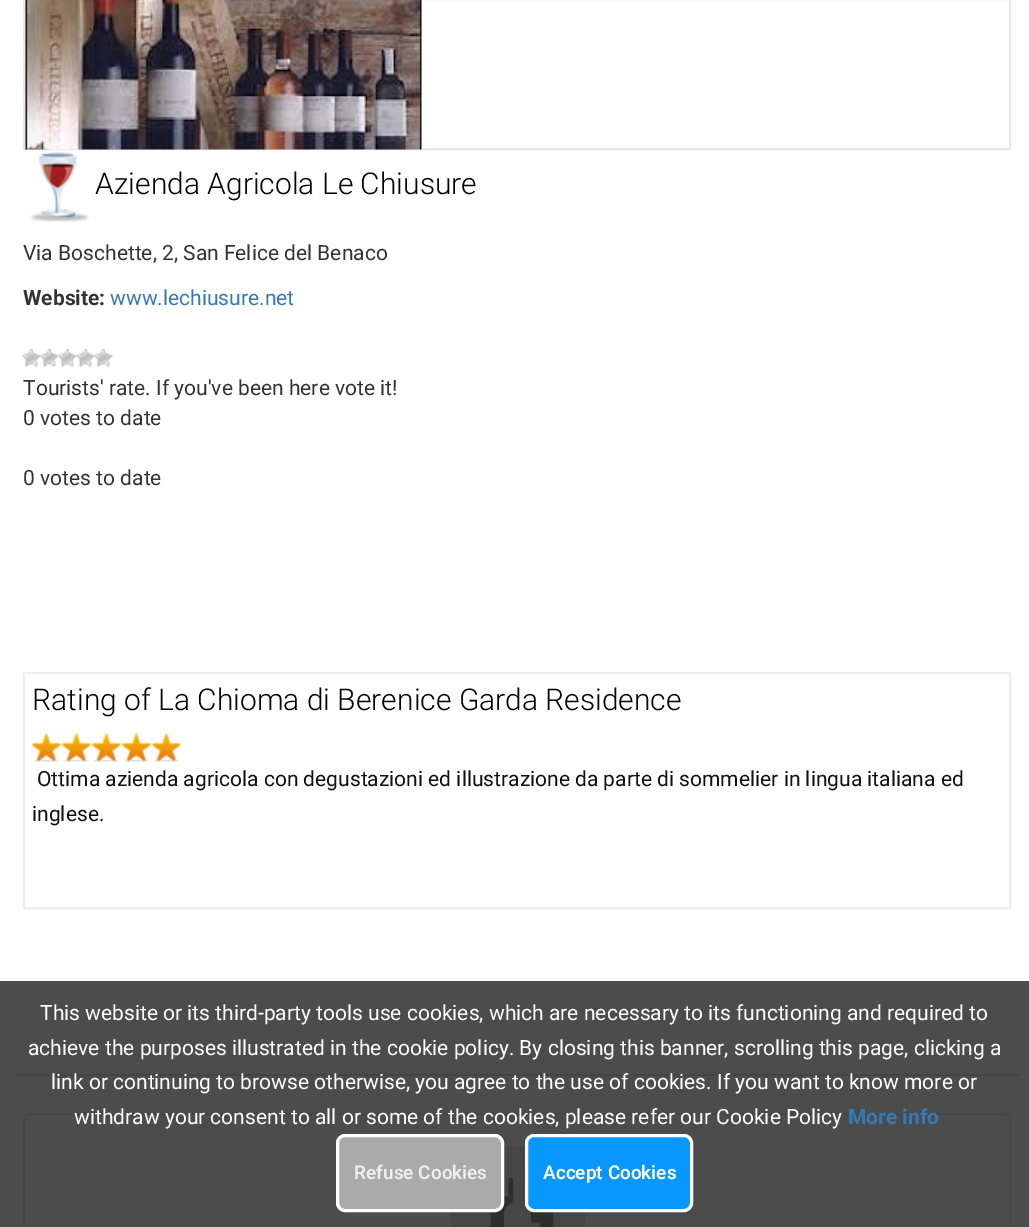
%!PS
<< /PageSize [1029 1227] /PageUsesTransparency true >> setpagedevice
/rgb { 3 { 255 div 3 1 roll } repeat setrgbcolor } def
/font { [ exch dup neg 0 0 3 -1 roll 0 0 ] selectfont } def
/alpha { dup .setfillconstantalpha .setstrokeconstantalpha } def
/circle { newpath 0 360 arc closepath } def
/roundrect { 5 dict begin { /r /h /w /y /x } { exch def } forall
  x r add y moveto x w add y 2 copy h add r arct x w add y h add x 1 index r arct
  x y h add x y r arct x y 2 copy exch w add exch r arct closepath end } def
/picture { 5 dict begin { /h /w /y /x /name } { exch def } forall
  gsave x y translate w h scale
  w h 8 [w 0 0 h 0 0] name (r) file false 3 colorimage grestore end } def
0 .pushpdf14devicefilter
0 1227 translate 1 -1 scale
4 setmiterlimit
255 255 255 rgb
0 0 1029 1227 rectfill
231 231 231 rgb
2 setlinewidth
24 -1 986 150 rectstroke
(img/1.rgb) 25 0 397 150 picture
(img/2.rgb) 30 152 59 70 picture
(img/3.rgb) 22 349 19 18 picture
(img/4.rgb) 40 349 19 18 picture
(img/4.rgb) 58 349 19 18 picture
(img/4.rgb) 76 349 19 18 picture
(img/4.rgb) 94 349 19 18 picture
238 238 238 rgb
24 673 986 235 rectstroke
(img/5.rgb) 31 733 151 29 picture
229 229 229 rgb
15 1074 1004 2 rectfill
238 238 238 rgb
24 1114 986 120 5 roundrect stroke
235 235 235 rgb
517.5 1213.5 67.5 circle fill
(img/6.rgb) 490 1177 64 50 picture
0.7 alpha
0 0 0 rgb
0 981 1029 246 rectfill
1 alpha
170 170 170 rgb
337.5 1135.5 165 75 7.5 roundrect gsave fill grestore
255 255 255 rgb
3 setlinewidth
stroke
8 150 255 rgb
526.5 1135.5 165 75 7.5 roundrect gsave fill grestore
255 255 255 rgb
stroke
/Roboto-Light 30 font
0 0 0 rgb
95 194 moveto (Azienda Agricola Le Chiusure) show
/Roboto-Regular 21 font
51 51 51 rgb
23 260 moveto (Via Boschette, 2, San Felice del Benaco) show
/Roboto-Bold 21 font
23 305 moveto (Website:) show
/Roboto-Regular 21 font
51 122 183 rgb
110 305 moveto (www.lechiusure.net) show
51 51 51 rgb
[
  [(Tourists' rate. If you've been here vote it!) 23 395]
  [(0 votes to date) 23 425]
  [(0 votes to date) 23 485]
] { aload pop moveto show } forall
/Roboto-Light 30 font
0 0 0 rgb
32 710 moveto (Rating of La Chioma di Berenice Garda Residence) show
/Roboto-Regular 21 font
17 17 17 rgb
37 786 moveto (Ottima azienda agricola con degustazioni ed illustrazione da parte di sommelier in lingua italiana ed) show
32 821 moveto (inglese.) show
255 255 255 rgb
[
  [(This website or its third-party tools use cookies, which are necessary to its functioning and required to) 40 1020]
  [(achieve the purposes illustrated in the cookie policy. By closing this banner, scrolling this page, clicking a) 28 1055]
  [(link or continuing to browse otherwise, you agree to the use of cookies. If you want to know more or) 51 1089]
  [(withdraw your consent to all or some of the cookies, please refer our Cookie Policy) 74 1124]
] { aload pop moveto show } forall
/Roboto-Bold 21 font
51 122 183 rgb
848 1124 moveto (More info) show
/Roboto-SemiBold 19 font
238 238 238 rgb
354 1179 moveto (Refuse Cookies) show
255 255 255 rgb
543 1179 moveto (Accept Cookies) show
.poppdf14devicefilter showpage
